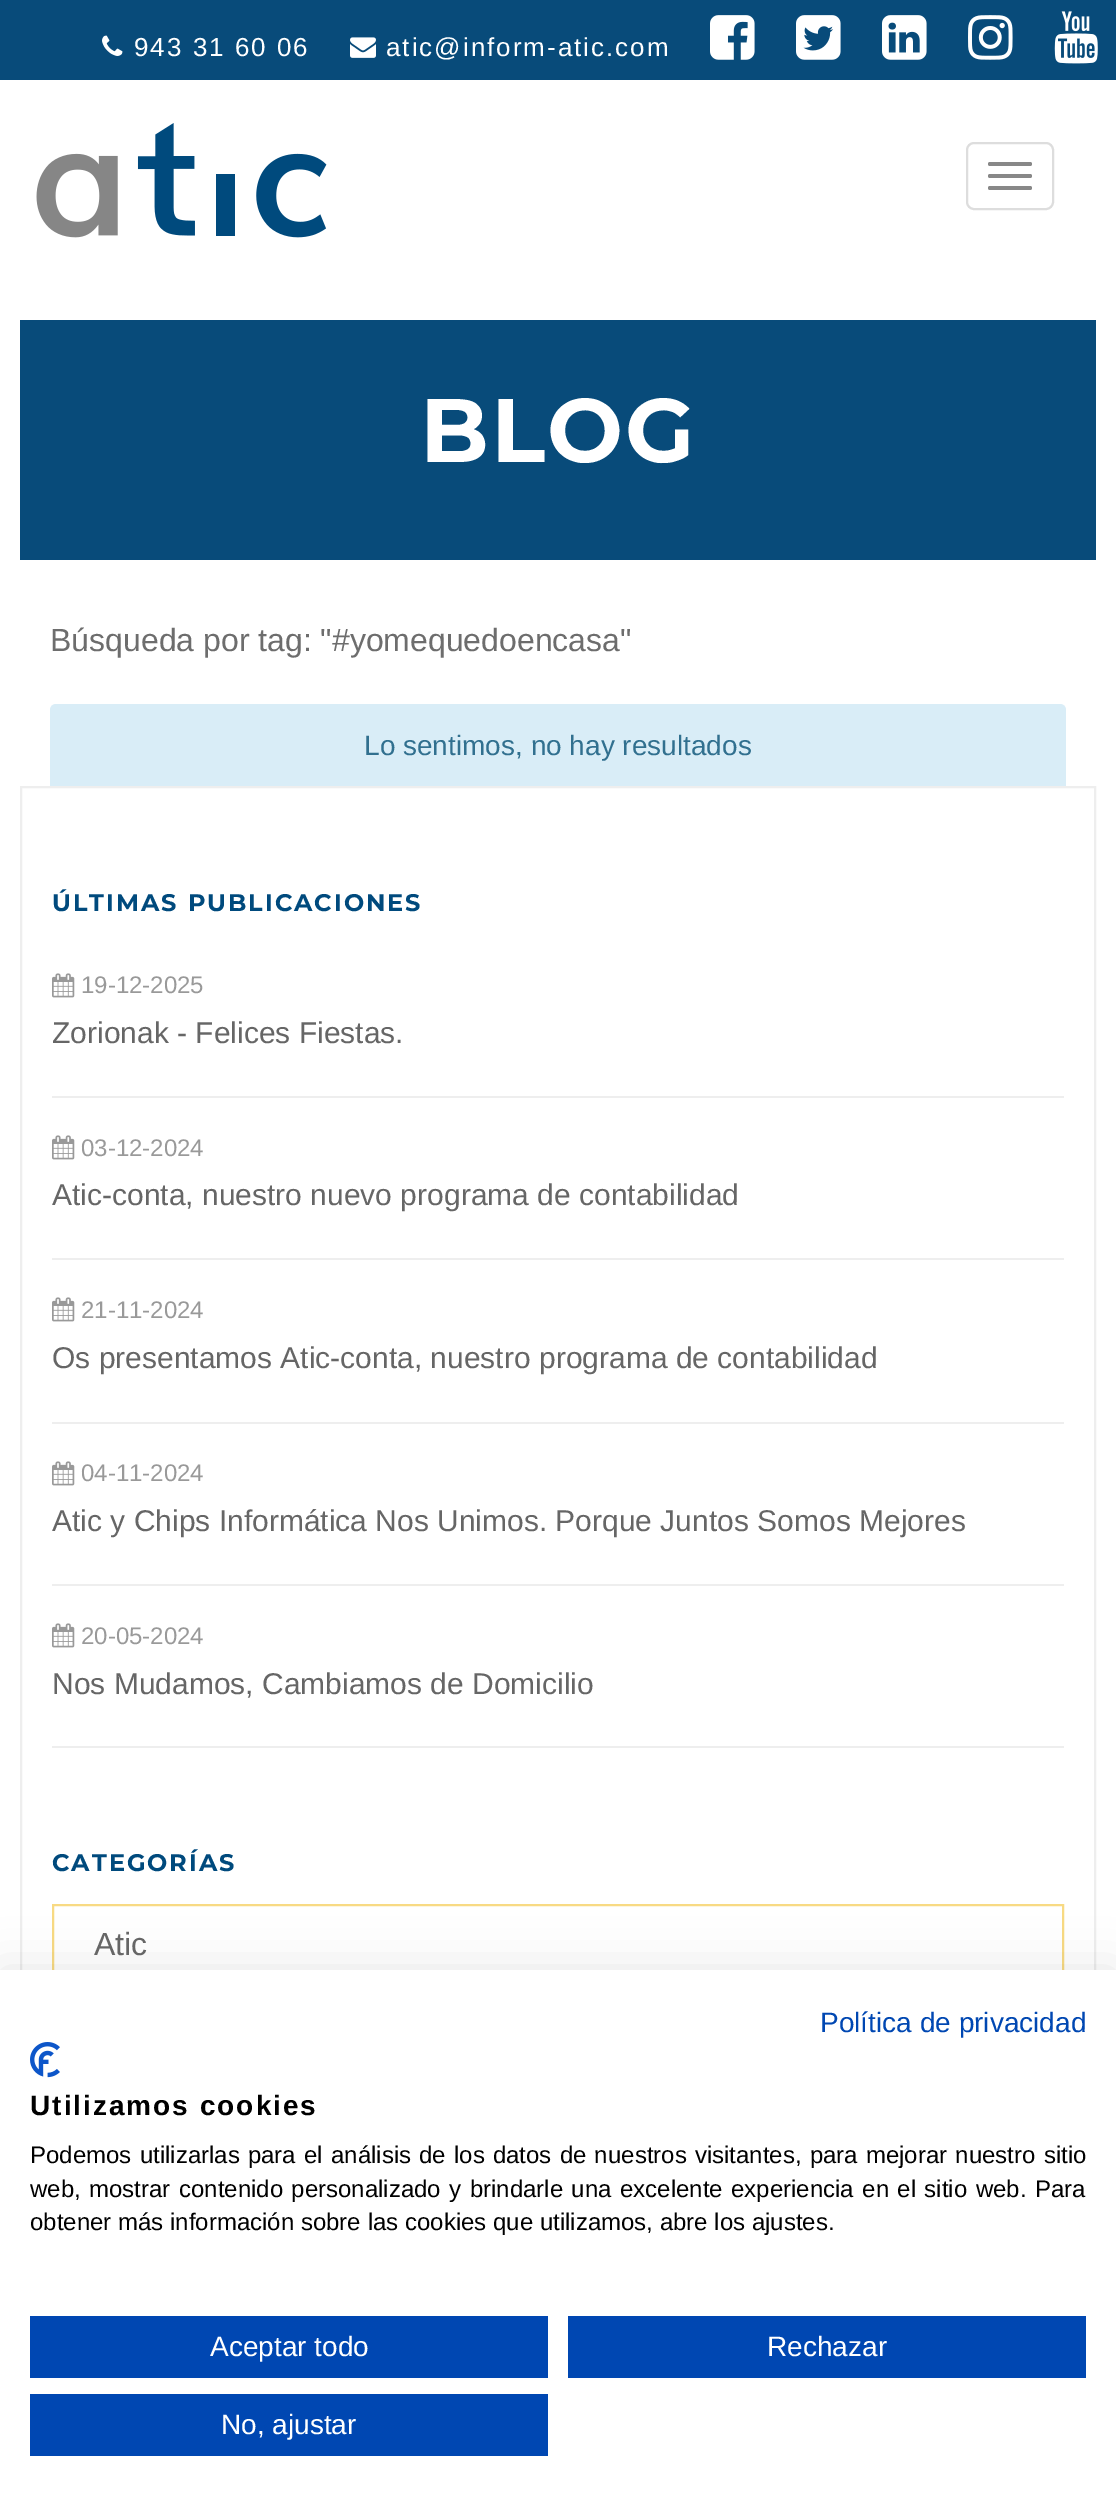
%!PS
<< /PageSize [1116 2509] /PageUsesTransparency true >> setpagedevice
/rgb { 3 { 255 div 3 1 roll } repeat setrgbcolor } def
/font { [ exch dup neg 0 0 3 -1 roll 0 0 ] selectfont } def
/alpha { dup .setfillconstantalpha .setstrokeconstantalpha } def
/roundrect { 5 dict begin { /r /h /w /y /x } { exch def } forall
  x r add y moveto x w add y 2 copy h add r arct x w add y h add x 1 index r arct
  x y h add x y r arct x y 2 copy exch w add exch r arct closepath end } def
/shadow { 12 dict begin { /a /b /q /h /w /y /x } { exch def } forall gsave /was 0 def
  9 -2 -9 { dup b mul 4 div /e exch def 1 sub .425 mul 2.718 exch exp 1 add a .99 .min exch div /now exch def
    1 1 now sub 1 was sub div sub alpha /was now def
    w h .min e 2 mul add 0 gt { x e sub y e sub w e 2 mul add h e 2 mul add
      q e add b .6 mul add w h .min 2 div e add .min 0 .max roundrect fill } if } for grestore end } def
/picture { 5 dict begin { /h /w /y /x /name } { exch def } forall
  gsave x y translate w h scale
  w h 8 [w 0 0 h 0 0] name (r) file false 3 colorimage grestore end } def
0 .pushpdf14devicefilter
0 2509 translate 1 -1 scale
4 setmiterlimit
255 255 255 rgb
0 0 1116 2509 rectfill
8 75 122 rgb
0 0 1116 80 rectfill
(img/1.rgb) 102 35 21 21 picture
(img/2.rgb) 350 37 26 21 picture
(img/3.rgb) 710 15 45 45 picture
(img/4.rgb) 796 15 45 45 picture
(img/5.rgb) 882 15 45 45 picture
(img/6.rgb) 968 15 45 45 picture
(img/7.rgb) 1054 11 44 53 picture
(img/8.rgb) 36 123 291 115 picture
221 221 221 rgb
2 setlinewidth
967 143 86 66 7 roundrect stroke
136 136 136 rgb
988 162 44 4 2 roundrect fill
988 174 44 4 2 roundrect fill
988 186 44 4 2 roundrect fill
8 75 122 rgb
20 320 1076 240 rectfill
217 237 247 rgb
56 704 moveto 1060 704 lineto 1063.5 704 1066 706.5 1066 710 curveto 1066 786 lineto 50 786 lineto 50 710 lineto 50 706.5 52.5 704 56 704 curveto closepath fill
238 238 238 rgb
21 787 1074 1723 rectstroke
52 1096 1012 2 rectfill
(img/9.rgb) 52 973 23 25 picture
52 1258 1012 2 rectfill
(img/9.rgb) 52 1135 23 25 picture
52 1422 1012 2 rectfill
(img/9.rgb) 52 1297 23 25 picture
52 1584 1012 2 rectfill
(img/9.rgb) 52 1461 23 25 picture
52 1746 1012 2 rectfill
(img/9.rgb) 52 1623 23 25 picture
248 218 131 rgb
53 1905 1010 80 rectstroke
0 0 0 rgb
0 1970 1116 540 0 24 0.1 shadow
255 255 255 rgb
0 1970 1116 539 rectfill
(img/10.rgb) 30 2042 30 36 picture
[
  [30 2316 518 62 0 71 178]
  [568 2316 518 62 0 71 178]
  [30 2394 518 62 0 71 178]
] { aload pop rgb rectfill } forall
/LiberationSans-Regular 26 font
255 255 255 rgb
134 56 moveto 2 0 (943 31 60 06) ashow
386 56 moveto 2 0 (atic@inform-atic.com) ashow
/Montserrat-Bold 90 font
420 462 moveto 2 0 (BLOG) ashow
/LiberationSans-Regular 32 font
109 109 109 rgb
50 651 moveto (Búsqueda por tag: "#yomequedoencasa") show
/LiberationSans-Regular 28 font
49 112 143 rgb
364 755 moveto (Lo sentimos, no hay resultados) show
/Montserrat-Bold 24 font
0 74 125 rgb
52 911 moveto 2 0 (ÚLTIMAS PUBLICACIONES) ashow
/LiberationSans-Regular 24 font
153 153 153 rgb
81 993 moveto (19-12-2025) show
/LiberationSans-Regular 30 font
102 102 102 rgb
52 1043 moveto (Zorionak - Felices Fiestas.) show
/LiberationSans-Regular 24 font
153 153 153 rgb
81 1156 moveto (03-12-2024) show
/LiberationSans-Regular 30 font
102 102 102 rgb
52 1205 moveto (Atic-conta, nuestro nuevo programa de contabilidad) show
/LiberationSans-Regular 24 font
153 153 153 rgb
81 1318 moveto (21-11-2024) show
/LiberationSans-Regular 30 font
102 102 102 rgb
52 1368 moveto (Os presentamos Atic-conta, nuestro programa de contabilidad) show
/LiberationSans-Regular 24 font
153 153 153 rgb
81 1481 moveto (04-11-2024) show
/LiberationSans-Regular 30 font
102 102 102 rgb
52 1531 moveto (Atic y Chips Informática Nos Unimos. Porque Juntos Somos Mejores) show
/LiberationSans-Regular 24 font
153 153 153 rgb
81 1644 moveto (20-05-2024) show
/LiberationSans-Regular 30 font
102 102 102 rgb
52 1694 moveto (Nos Mudamos, Cambiamos de Domicilio) show
/Montserrat-Bold 24 font
0 74 125 rgb
52 1871 moveto 2 0 (CATEGORÍAS) ashow
/LiberationSans-Regular 32 font
102 102 102 rgb
94 1955 moveto (Atic) show
/LiberationSans-Regular 28 font
0 71 178 rgb
820 2032 moveto (Política de privacidad) show
/LiberationSans-Bold 28 font
0 0 0 rgb
30 2115 moveto 2 0 (Utilizamos cookies) ashow
/LiberationSans-Regular 24 font
30 2163 moveto 1.5 0 32 (Podemos utilizarlas para el análisis de los datos de nuestros visitantes, para mejorar nuestro sitio) widthshow
30 2197 moveto 1.75 0 32 (web, mostrar contenido personalizado y brindarle una excelente experiencia en el sitio web. Para) widthshow
30 2230 moveto (obtener más información sobre las cookies que utilizamos, abre los ajustes.) show
/LiberationSans-Regular 28 font
255 255 255 rgb
[
  [(Aceptar todo) 210 2356]
  [(Rechazar) 767 2356]
  [(No, ajustar) 221 2434]
] { aload pop moveto show } forall
.poppdf14devicefilter showpage
